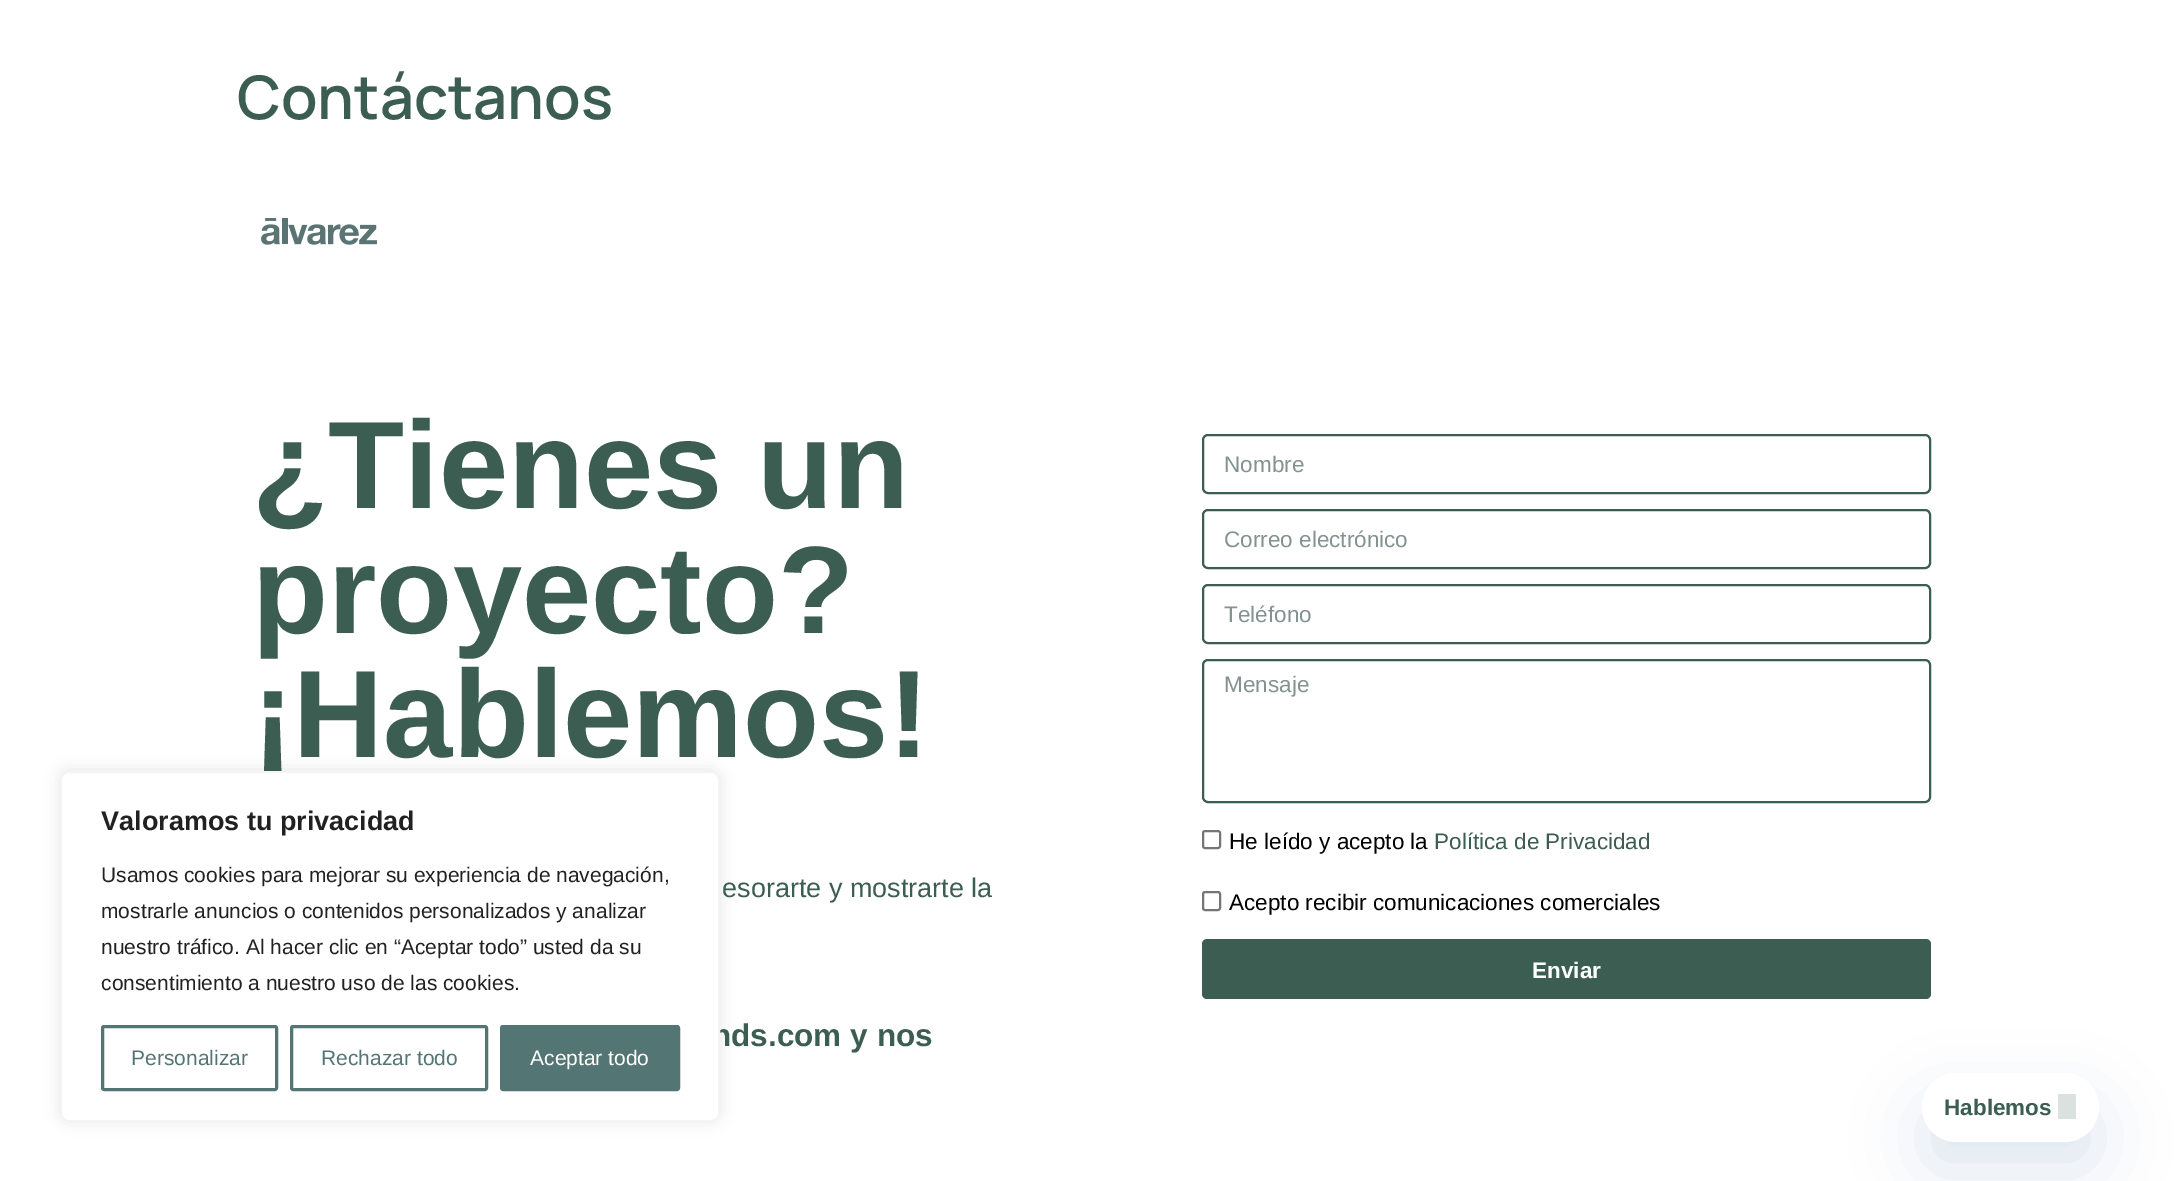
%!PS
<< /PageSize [2183 1181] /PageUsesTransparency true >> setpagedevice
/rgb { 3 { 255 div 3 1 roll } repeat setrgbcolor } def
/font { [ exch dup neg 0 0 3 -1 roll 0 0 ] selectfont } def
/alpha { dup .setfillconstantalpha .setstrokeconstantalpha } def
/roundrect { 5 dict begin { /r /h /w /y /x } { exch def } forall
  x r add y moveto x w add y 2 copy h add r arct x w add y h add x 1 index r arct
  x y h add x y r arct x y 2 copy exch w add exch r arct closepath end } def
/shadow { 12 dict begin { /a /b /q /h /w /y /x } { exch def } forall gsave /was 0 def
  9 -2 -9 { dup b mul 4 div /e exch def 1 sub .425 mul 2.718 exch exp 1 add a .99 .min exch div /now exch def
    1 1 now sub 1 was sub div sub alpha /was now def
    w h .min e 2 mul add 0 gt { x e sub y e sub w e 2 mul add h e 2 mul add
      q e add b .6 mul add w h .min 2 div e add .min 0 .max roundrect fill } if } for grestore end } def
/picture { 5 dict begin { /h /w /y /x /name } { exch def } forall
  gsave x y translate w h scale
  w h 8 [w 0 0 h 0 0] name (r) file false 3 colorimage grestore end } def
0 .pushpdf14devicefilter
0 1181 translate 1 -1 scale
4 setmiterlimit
255 255 255 rgb
0 0 2183 1181 rectfill
(img/1.rgb) 261 218 116 27 picture
60 93 82 rgb
2 setlinewidth
1203 435 727 58 5 roundrect stroke
1203 510 727 58 5 roundrect stroke
1203 585 727 58 5 roundrect stroke
1203 660 727 142 5 roundrect stroke
118 118 118 rgb
1203 831 17 17 2 roundrect stroke
1203 892 17 18 2 roundrect stroke
60 93 82 rgb
1202 939 729 60 5 roundrect fill
72 119 175 rgb
1922 1103 177 69 34.5 33 0.17 shadow
255 255 255 rgb
1922 1073 177 69 34.5 roundrect fill
218 225 223 rgb
2058 1094 18 25 rectfill
172 171 171 rgb
60 770 660 351 9 7.5 0.3 shadow
/Manrope-SemiBold 60 font
60 93 82 rgb
237 119 moveto (Contáctanos) show
/LiberationSans-Bold 124.5 font
[
  [(¿Tienes un) 252 508]
  [(proyecto?) 252 633]
  [(¡Hablemos!) 252 757]
] { aload pop moveto show } forall
/LiberationSans-Regular 27 font
722 897 moveto (esorarte y mostrarte la) show
/LiberationSans-Bold 31.5 font
712 1046 moveto (nds.com y nos) show
/LiberationSans-Regular 22.5 font
132 146 146 rgb
[
  [(Nombre) 1224 472]
  [(Correo electrónico) 1224 547]
  [(Teléfono) 1224 622]
  [(Mensaje) 1224 692]
] { aload pop moveto show } forall
0 0 0 rgb
1229 849 moveto (He leído y acepto la) show
60 93 82 rgb
1434 849 moveto (Política de Privacidad) show
0 0 0 rgb
1229 910 moveto (Acepto recibir comunicaciones comerciales) show
/LiberationSans-Bold 22.5 font
255 255 255 rgb
1532 978 moveto (Enviar) show
60 93 82 rgb
1944 1115 moveto (Hablemos) show
255 255 255 rgb
61 772 658 349 8 roundrect gsave fill grestore
244 244 244 rgb
stroke
/LiberationSans-Bold 27 font
33 33 33 rgb
101 830 moveto (Valoramos tu privacidad) show
/LiberationSans-Regular 21 font
[
  [(Usamos cookies para mejorar su experiencia de navegación,) 101 882]
  [(mostrarle anuncios o contenidos personalizados y analizar) 101 918]
  [(nuestro tráfico. Al hacer clic en “Aceptar todo” usted da su) 101 954]
  [(consentimiento a nuestro uso de las cookies.) 101 990]
] { aload pop moveto show } forall
83 117 115 rgb
3 setlinewidth
102.5 1026.5 174 63 1.5 roundrect stroke
131 1065 moveto (Personalizar) show
291.5 1026.5 195 63 1.5 roundrect stroke
321 1065 moveto (Rechazar todo) show
501.5 1026.5 177 63 1.5 roundrect gsave fill grestore
stroke
255 255 255 rgb
530 1065 moveto (Aceptar todo) show
.poppdf14devicefilter showpage
